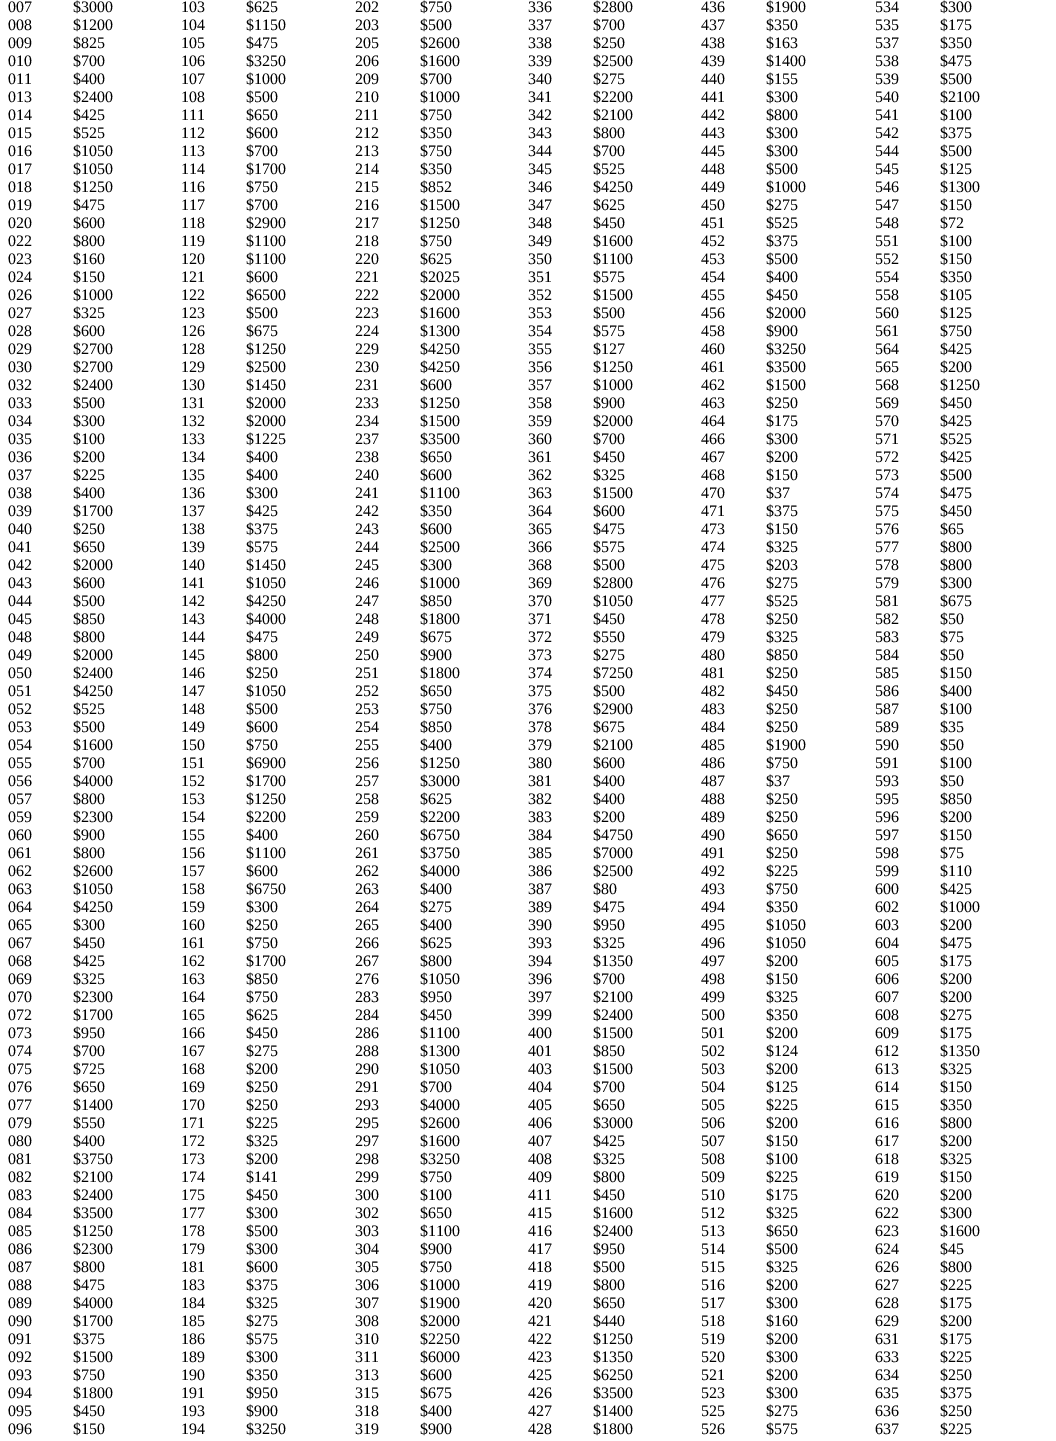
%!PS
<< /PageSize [1056 1441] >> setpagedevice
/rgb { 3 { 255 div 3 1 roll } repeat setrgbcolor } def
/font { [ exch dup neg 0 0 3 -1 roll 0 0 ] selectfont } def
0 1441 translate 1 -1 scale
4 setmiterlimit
255 255 255 rgb
0 0 1056 1441 rectfill
/LiberationSerif-Regular 16 font
0 0 0 rgb
[
  [(007) 8 12]
  [($3000) 73 12]
  [(103) 181 12]
  [($625) 246 12]
  [(202) 355 12]
  [($750) 420 12]
  [(336) 528 12]
  [($2800) 593 12]
  [(436) 701 12]
  [($1900) 766 12]
  [(534) 875 12]
  [($300) 940 12]
  [(008) 8 30]
  [($1200) 73 30]
  [(104) 181 30]
  [($1150) 246 30]
  [(203) 355 30]
  [($500) 420 30]
  [(337) 528 30]
  [($700) 593 30]
  [(437) 701 30]
  [($350) 766 30]
  [(535) 875 30]
  [($175) 940 30]
  [(009) 8 48]
  [($825) 73 48]
  [(105) 181 48]
  [($475) 246 48]
  [(205) 355 48]
  [($2600) 420 48]
  [(338) 528 48]
  [($250) 593 48]
  [(438) 701 48]
  [($163) 766 48]
  [(537) 875 48]
  [($350) 940 48]
  [(010) 8 66]
  [($700) 73 66]
  [(106) 181 66]
  [($3250) 246 66]
  [(206) 355 66]
  [($1600) 420 66]
  [(339) 528 66]
  [($2500) 593 66]
  [(439) 701 66]
  [($1400) 766 66]
  [(538) 875 66]
  [($475) 940 66]
  [(011) 8 84]
  [($400) 73 84]
  [(107) 181 84]
  [($1000) 246 84]
  [(209) 355 84]
  [($700) 420 84]
  [(340) 528 84]
  [($275) 593 84]
  [(440) 701 84]
  [($155) 766 84]
  [(539) 875 84]
  [($500) 940 84]
  [(013) 8 102]
  [($2400) 73 102]
  [(108) 181 102]
  [($500) 246 102]
  [(210) 355 102]
  [($1000) 420 102]
  [(341) 528 102]
  [($2200) 593 102]
  [(441) 701 102]
  [($300) 766 102]
  [(540) 875 102]
  [($2100) 940 102]
  [(014) 8 120]
  [($425) 73 120]
  [(111) 181 120]
  [($650) 246 120]
  [(211) 355 120]
  [($750) 420 120]
  [(342) 528 120]
  [($2100) 593 120]
  [(442) 701 120]
  [($800) 766 120]
  [(541) 875 120]
  [($100) 940 120]
  [(015) 8 138]
  [($525) 73 138]
  [(112) 181 138]
  [($600) 246 138]
  [(212) 355 138]
  [($350) 420 138]
  [(343) 528 138]
  [($800) 593 138]
  [(443) 701 138]
  [($300) 766 138]
  [(542) 875 138]
  [($375) 940 138]
  [(016) 8 156]
  [($1050) 73 156]
  [(113) 181 156]
  [($700) 246 156]
  [(213) 355 156]
  [($750) 420 156]
  [(344) 528 156]
  [($700) 593 156]
  [(445) 701 156]
  [($300) 766 156]
  [(544) 875 156]
  [($500) 940 156]
  [(017) 8 174]
  [($1050) 73 174]
  [(114) 181 174]
  [($1700) 246 174]
  [(214) 355 174]
  [($350) 420 174]
  [(345) 528 174]
  [($525) 593 174]
  [(448) 701 174]
  [($500) 766 174]
  [(545) 875 174]
  [($125) 940 174]
  [(018) 8 192]
  [($1250) 73 192]
  [(116) 181 192]
  [($750) 246 192]
  [(215) 355 192]
  [($852) 420 192]
  [(346) 528 192]
  [($4250) 593 192]
  [(449) 701 192]
  [($1000) 766 192]
  [(546) 875 192]
  [($1300) 940 192]
  [(019) 8 210]
  [($475) 73 210]
  [(117) 181 210]
  [($700) 246 210]
  [(216) 355 210]
  [($1500) 420 210]
  [(347) 528 210]
  [($625) 593 210]
  [(450) 701 210]
  [($275) 766 210]
  [(547) 875 210]
  [($150) 940 210]
  [(020) 8 228]
  [($600) 73 228]
  [(118) 181 228]
  [($2900) 246 228]
  [(217) 355 228]
  [($1250) 420 228]
  [(348) 528 228]
  [($450) 593 228]
  [(451) 701 228]
  [($525) 766 228]
  [(548) 875 228]
  [($72) 940 228]
  [(022) 8 246]
  [($800) 73 246]
  [(119) 181 246]
  [($1100) 246 246]
  [(218) 355 246]
  [($750) 420 246]
  [(349) 528 246]
  [($1600) 593 246]
  [(452) 701 246]
  [($375) 766 246]
  [(551) 875 246]
  [($100) 940 246]
  [(023) 8 264]
  [($160) 73 264]
  [(120) 181 264]
  [($1100) 246 264]
  [(220) 355 264]
  [($625) 420 264]
  [(350) 528 264]
  [($1100) 593 264]
  [(453) 701 264]
  [($500) 766 264]
  [(552) 875 264]
  [($150) 940 264]
  [(024) 8 282]
  [($150) 73 282]
  [(121) 181 282]
  [($600) 246 282]
  [(221) 355 282]
  [($2025) 420 282]
  [(351) 528 282]
  [($575) 593 282]
  [(454) 701 282]
  [($400) 766 282]
  [(554) 875 282]
  [($350) 940 282]
  [(026) 8 300]
  [($1000) 73 300]
  [(122) 181 300]
  [($6500) 246 300]
  [(222) 355 300]
  [($2000) 420 300]
  [(352) 528 300]
  [($1500) 593 300]
  [(455) 701 300]
  [($450) 766 300]
  [(558) 875 300]
  [($105) 940 300]
  [(027) 8 318]
  [($325) 73 318]
  [(123) 181 318]
  [($500) 246 318]
  [(223) 355 318]
  [($1600) 420 318]
  [(353) 528 318]
  [($500) 593 318]
  [(456) 701 318]
  [($2000) 766 318]
  [(560) 875 318]
  [($125) 940 318]
  [(028) 8 336]
  [($600) 73 336]
  [(126) 181 336]
  [($675) 246 336]
  [(224) 355 336]
  [($1300) 420 336]
  [(354) 528 336]
  [($575) 593 336]
  [(458) 701 336]
  [($900) 766 336]
  [(561) 875 336]
  [($750) 940 336]
  [(029) 8 354]
  [($2700) 73 354]
  [(128) 181 354]
  [($1250) 246 354]
  [(229) 355 354]
  [($4250) 420 354]
  [(355) 528 354]
  [($127) 593 354]
  [(460) 701 354]
  [($3250) 766 354]
  [(564) 875 354]
  [($425) 940 354]
  [(030) 8 372]
  [($2700) 73 372]
  [(129) 181 372]
  [($2500) 246 372]
  [(230) 355 372]
  [($4250) 420 372]
  [(356) 528 372]
  [($1250) 593 372]
  [(461) 701 372]
  [($3500) 766 372]
  [(565) 875 372]
  [($200) 940 372]
  [(032) 8 390]
  [($2400) 73 390]
  [(130) 181 390]
  [($1450) 246 390]
  [(231) 355 390]
  [($600) 420 390]
  [(357) 528 390]
  [($1000) 593 390]
  [(462) 701 390]
  [($1500) 766 390]
  [(568) 875 390]
  [($1250) 940 390]
  [(033) 8 408]
  [($500) 73 408]
  [(131) 181 408]
  [($2000) 246 408]
  [(233) 355 408]
  [($1250) 420 408]
  [(358) 528 408]
  [($900) 593 408]
  [(463) 701 408]
  [($250) 766 408]
  [(569) 875 408]
  [($450) 940 408]
  [(034) 8 426]
  [($300) 73 426]
  [(132) 181 426]
  [($2000) 246 426]
  [(234) 355 426]
  [($1500) 420 426]
  [(359) 528 426]
  [($2000) 593 426]
  [(464) 701 426]
  [($175) 766 426]
  [(570) 875 426]
  [($425) 940 426]
  [(035) 8 444]
  [($100) 73 444]
  [(133) 181 444]
  [($1225) 246 444]
  [(237) 355 444]
  [($3500) 420 444]
  [(360) 528 444]
  [($700) 593 444]
  [(466) 701 444]
  [($300) 766 444]
  [(571) 875 444]
  [($525) 940 444]
  [(036) 8 462]
  [($200) 73 462]
  [(134) 181 462]
  [($400) 246 462]
  [(238) 355 462]
  [($650) 420 462]
  [(361) 528 462]
  [($450) 593 462]
  [(467) 701 462]
  [($200) 766 462]
  [(572) 875 462]
  [($425) 940 462]
  [(037) 8 480]
  [($225) 73 480]
  [(135) 181 480]
  [($400) 246 480]
  [(240) 355 480]
  [($600) 420 480]
  [(362) 528 480]
  [($325) 593 480]
  [(468) 701 480]
  [($150) 766 480]
  [(573) 875 480]
  [($500) 940 480]
  [(038) 8 498]
  [($400) 73 498]
  [(136) 181 498]
  [($300) 246 498]
  [(241) 355 498]
  [($1100) 420 498]
  [(363) 528 498]
  [($1500) 593 498]
  [(470) 701 498]
  [($37) 766 498]
  [(574) 875 498]
  [($475) 940 498]
  [(039) 8 516]
  [($1700) 73 516]
  [(137) 181 516]
  [($425) 246 516]
  [(242) 355 516]
  [($350) 420 516]
  [(364) 528 516]
  [($600) 593 516]
  [(471) 701 516]
  [($375) 766 516]
  [(575) 875 516]
  [($450) 940 516]
  [(040) 8 534]
  [($250) 73 534]
  [(138) 181 534]
  [($375) 246 534]
  [(243) 355 534]
  [($600) 420 534]
  [(365) 528 534]
  [($475) 593 534]
  [(473) 701 534]
  [($150) 766 534]
  [(576) 875 534]
  [($65) 940 534]
  [(041) 8 552]
  [($650) 73 552]
  [(139) 181 552]
  [($575) 246 552]
  [(244) 355 552]
  [($2500) 420 552]
  [(366) 528 552]
  [($575) 593 552]
  [(474) 701 552]
  [($325) 766 552]
  [(577) 875 552]
  [($800) 940 552]
  [(042) 8 570]
  [($2000) 73 570]
  [(140) 181 570]
  [($1450) 246 570]
  [(245) 355 570]
  [($300) 420 570]
  [(368) 528 570]
  [($500) 593 570]
  [(475) 701 570]
  [($203) 766 570]
  [(578) 875 570]
  [($800) 940 570]
  [(043) 8 588]
  [($600) 73 588]
  [(141) 181 588]
  [($1050) 246 588]
  [(246) 355 588]
  [($1000) 420 588]
  [(369) 528 588]
  [($2800) 593 588]
  [(476) 701 588]
  [($275) 766 588]
  [(579) 875 588]
  [($300) 940 588]
  [(044) 8 606]
  [($500) 73 606]
  [(142) 181 606]
  [($4250) 246 606]
  [(247) 355 606]
  [($850) 420 606]
  [(370) 528 606]
  [($1050) 593 606]
  [(477) 701 606]
  [($525) 766 606]
  [(581) 875 606]
  [($675) 940 606]
  [(045) 8 624]
  [($850) 73 624]
  [(143) 181 624]
  [($4000) 246 624]
  [(248) 355 624]
  [($1800) 420 624]
  [(371) 528 624]
  [($450) 593 624]
  [(478) 701 624]
  [($250) 766 624]
  [(582) 875 624]
  [($50) 940 624]
  [(048) 8 642]
  [($800) 73 642]
  [(144) 181 642]
  [($475) 246 642]
  [(249) 355 642]
  [($675) 420 642]
  [(372) 528 642]
  [($550) 593 642]
  [(479) 701 642]
  [($325) 766 642]
  [(583) 875 642]
  [($75) 940 642]
  [(049) 8 660]
  [($2000) 73 660]
  [(145) 181 660]
  [($800) 246 660]
  [(250) 355 660]
  [($900) 420 660]
  [(373) 528 660]
  [($275) 593 660]
  [(480) 701 660]
  [($850) 766 660]
  [(584) 875 660]
  [($50) 940 660]
  [(050) 8 678]
  [($2400) 73 678]
  [(146) 181 678]
  [($250) 246 678]
  [(251) 355 678]
  [($1800) 420 678]
  [(374) 528 678]
  [($7250) 593 678]
  [(481) 701 678]
  [($250) 766 678]
  [(585) 875 678]
  [($150) 940 678]
  [(051) 8 696]
  [($4250) 73 696]
  [(147) 181 696]
  [($1050) 246 696]
  [(252) 355 696]
  [($650) 420 696]
  [(375) 528 696]
  [($500) 593 696]
  [(482) 701 696]
  [($450) 766 696]
  [(586) 875 696]
  [($400) 940 696]
  [(052) 8 714]
  [($525) 73 714]
  [(148) 181 714]
  [($500) 246 714]
  [(253) 355 714]
  [($750) 420 714]
  [(376) 528 714]
  [($2900) 593 714]
  [(483) 701 714]
  [($250) 766 714]
  [(587) 875 714]
  [($100) 940 714]
  [(053) 8 732]
  [($500) 73 732]
  [(149) 181 732]
  [($600) 246 732]
  [(254) 355 732]
  [($850) 420 732]
  [(378) 528 732]
  [($675) 593 732]
  [(484) 701 732]
  [($250) 766 732]
  [(589) 875 732]
  [($35) 940 732]
  [(054) 8 750]
  [($1600) 73 750]
  [(150) 181 750]
  [($750) 246 750]
  [(255) 355 750]
  [($400) 420 750]
  [(379) 528 750]
  [($2100) 593 750]
  [(485) 701 750]
  [($1900) 766 750]
  [(590) 875 750]
  [($50) 940 750]
  [(055) 8 768]
  [($700) 73 768]
  [(151) 181 768]
  [($6900) 246 768]
  [(256) 355 768]
  [($1250) 420 768]
  [(380) 528 768]
  [($600) 593 768]
  [(486) 701 768]
  [($750) 766 768]
  [(591) 875 768]
  [($100) 940 768]
  [(056) 8 786]
  [($4000) 73 786]
  [(152) 181 786]
  [($1700) 246 786]
  [(257) 355 786]
  [($3000) 420 786]
  [(381) 528 786]
  [($400) 593 786]
  [(487) 701 786]
  [($37) 766 786]
  [(593) 875 786]
  [($50) 940 786]
  [(057) 8 804]
  [($800) 73 804]
  [(153) 181 804]
  [($1250) 246 804]
  [(258) 355 804]
  [($625) 420 804]
  [(382) 528 804]
  [($400) 593 804]
  [(488) 701 804]
  [($250) 766 804]
  [(595) 875 804]
  [($850) 940 804]
  [(059) 8 822]
  [($2300) 73 822]
  [(154) 181 822]
  [($2200) 246 822]
  [(259) 355 822]
  [($2200) 420 822]
  [(383) 528 822]
  [($200) 593 822]
  [(489) 701 822]
  [($250) 766 822]
  [(596) 875 822]
  [($200) 940 822]
  [(060) 8 840]
  [($900) 73 840]
  [(155) 181 840]
  [($400) 246 840]
  [(260) 355 840]
  [($6750) 420 840]
  [(384) 528 840]
  [($4750) 593 840]
  [(490) 701 840]
  [($650) 766 840]
  [(597) 875 840]
  [($150) 940 840]
  [(061) 8 858]
  [($800) 73 858]
  [(156) 181 858]
  [($1100) 246 858]
  [(261) 355 858]
  [($3750) 420 858]
  [(385) 528 858]
  [($7000) 593 858]
  [(491) 701 858]
  [($250) 766 858]
  [(598) 875 858]
  [($75) 940 858]
  [(062) 8 876]
  [($2600) 73 876]
  [(157) 181 876]
  [($600) 246 876]
  [(262) 355 876]
  [($4000) 420 876]
  [(386) 528 876]
  [($2500) 593 876]
  [(492) 701 876]
  [($225) 766 876]
  [(599) 875 876]
  [($110) 940 876]
  [(063) 8 894]
  [($1050) 73 894]
  [(158) 181 894]
  [($6750) 246 894]
  [(263) 355 894]
  [($400) 420 894]
  [(387) 528 894]
  [($80) 593 894]
  [(493) 701 894]
  [($750) 766 894]
  [(600) 875 894]
  [($425) 940 894]
  [(064) 8 912]
  [($4250) 73 912]
  [(159) 181 912]
  [($300) 246 912]
  [(264) 355 912]
  [($275) 420 912]
  [(389) 528 912]
  [($475) 593 912]
  [(494) 701 912]
  [($350) 766 912]
  [(602) 875 912]
  [($1000) 940 912]
  [(065) 8 930]
  [($300) 73 930]
  [(160) 181 930]
  [($250) 246 930]
  [(265) 355 930]
  [($400) 420 930]
  [(390) 528 930]
  [($950) 593 930]
  [(495) 701 930]
  [($1050) 766 930]
  [(603) 875 930]
  [($200) 940 930]
  [(067) 8 948]
  [($450) 73 948]
  [(161) 181 948]
  [($750) 246 948]
  [(266) 355 948]
  [($625) 420 948]
  [(393) 528 948]
  [($325) 593 948]
  [(496) 701 948]
  [($1050) 766 948]
  [(604) 875 948]
  [($475) 940 948]
  [(068) 8 966]
  [($425) 73 966]
  [(162) 181 966]
  [($1700) 246 966]
  [(267) 355 966]
  [($800) 420 966]
  [(394) 528 966]
  [($1350) 593 966]
  [(497) 701 966]
  [($200) 766 966]
  [(605) 875 966]
  [($175) 940 966]
  [(069) 8 984]
  [($325) 73 984]
  [(163) 181 984]
  [($850) 246 984]
  [(276) 355 984]
  [($1050) 420 984]
  [(396) 528 984]
  [($700) 593 984]
  [(498) 701 984]
  [($150) 766 984]
  [(606) 875 984]
  [($200) 940 984]
  [(070) 8 1002]
  [($2300) 73 1002]
  [(164) 181 1002]
  [($750) 246 1002]
  [(283) 355 1002]
  [($950) 420 1002]
  [(397) 528 1002]
  [($2100) 593 1002]
  [(499) 701 1002]
  [($325) 766 1002]
  [(607) 875 1002]
  [($200) 940 1002]
  [(072) 8 1020]
  [($1700) 73 1020]
  [(165) 181 1020]
  [($625) 246 1020]
  [(284) 355 1020]
  [($450) 420 1020]
  [(399) 528 1020]
  [($2400) 593 1020]
  [(500) 701 1020]
  [($350) 766 1020]
  [(608) 875 1020]
  [($275) 940 1020]
  [(073) 8 1038]
  [($950) 73 1038]
  [(166) 181 1038]
  [($450) 246 1038]
  [(286) 355 1038]
  [($1100) 420 1038]
  [(400) 528 1038]
  [($1500) 593 1038]
  [(501) 701 1038]
  [($200) 766 1038]
  [(609) 875 1038]
  [($175) 940 1038]
  [(074) 8 1056]
  [($700) 73 1056]
  [(167) 181 1056]
  [($275) 246 1056]
  [(288) 355 1056]
  [($1300) 420 1056]
  [(401) 528 1056]
  [($850) 593 1056]
  [(502) 701 1056]
  [($124) 766 1056]
  [(612) 875 1056]
  [($1350) 940 1056]
  [(075) 8 1074]
  [($725) 73 1074]
  [(168) 181 1074]
  [($200) 246 1074]
  [(290) 355 1074]
  [($1050) 420 1074]
  [(403) 528 1074]
  [($1500) 593 1074]
  [(503) 701 1074]
  [($200) 766 1074]
  [(613) 875 1074]
  [($325) 940 1074]
  [(076) 8 1092]
  [($650) 73 1092]
  [(169) 181 1092]
  [($250) 246 1092]
  [(291) 355 1092]
  [($700) 420 1092]
  [(404) 528 1092]
  [($700) 593 1092]
  [(504) 701 1092]
  [($125) 766 1092]
  [(614) 875 1092]
  [($150) 940 1092]
  [(077) 8 1110]
  [($1400) 73 1110]
  [(170) 181 1110]
  [($250) 246 1110]
  [(293) 355 1110]
  [($4000) 420 1110]
  [(405) 528 1110]
  [($650) 593 1110]
  [(505) 701 1110]
  [($225) 766 1110]
  [(615) 875 1110]
  [($350) 940 1110]
  [(079) 8 1128]
  [($550) 73 1128]
  [(171) 181 1128]
  [($225) 246 1128]
  [(295) 355 1128]
  [($2600) 420 1128]
  [(406) 528 1128]
  [($3000) 593 1128]
  [(506) 701 1128]
  [($200) 766 1128]
  [(616) 875 1128]
  [($800) 940 1128]
  [(080) 8 1146]
  [($400) 73 1146]
  [(172) 181 1146]
  [($325) 246 1146]
  [(297) 355 1146]
  [($1600) 420 1146]
  [(407) 528 1146]
  [($425) 593 1146]
  [(507) 701 1146]
  [($150) 766 1146]
  [(617) 875 1146]
  [($200) 940 1146]
  [(081) 8 1164]
  [($3750) 73 1164]
  [(173) 181 1164]
  [($200) 246 1164]
  [(298) 355 1164]
  [($3250) 420 1164]
  [(408) 528 1164]
  [($325) 593 1164]
  [(508) 701 1164]
  [($100) 766 1164]
  [(618) 875 1164]
  [($325) 940 1164]
  [(082) 8 1182]
  [($2100) 73 1182]
  [(174) 181 1182]
  [($141) 246 1182]
  [(299) 355 1182]
  [($750) 420 1182]
  [(409) 528 1182]
  [($800) 593 1182]
  [(509) 701 1182]
  [($225) 766 1182]
  [(619) 875 1182]
  [($150) 940 1182]
  [(083) 8 1200]
  [($2400) 73 1200]
  [(175) 181 1200]
  [($450) 246 1200]
  [(300) 355 1200]
  [($100) 420 1200]
  [(411) 528 1200]
  [($450) 593 1200]
  [(510) 701 1200]
  [($175) 766 1200]
  [(620) 875 1200]
  [($200) 940 1200]
  [(084) 8 1218]
  [($3500) 73 1218]
  [(177) 181 1218]
  [($300) 246 1218]
  [(302) 355 1218]
  [($650) 420 1218]
  [(415) 528 1218]
  [($1600) 593 1218]
  [(512) 701 1218]
  [($325) 766 1218]
  [(622) 875 1218]
  [($300) 940 1218]
  [(085) 8 1236]
  [($1250) 73 1236]
  [(178) 181 1236]
  [($500) 246 1236]
  [(303) 355 1236]
  [($1100) 420 1236]
  [(416) 528 1236]
  [($2400) 593 1236]
  [(513) 701 1236]
  [($650) 766 1236]
  [(623) 875 1236]
  [($1600) 940 1236]
  [(086) 8 1254]
  [($2300) 73 1254]
  [(179) 181 1254]
  [($300) 246 1254]
  [(304) 355 1254]
  [($900) 420 1254]
  [(417) 528 1254]
  [($950) 593 1254]
  [(514) 701 1254]
  [($500) 766 1254]
  [(624) 875 1254]
  [($45) 940 1254]
  [(087) 8 1272]
  [($800) 73 1272]
  [(181) 181 1272]
  [($600) 246 1272]
  [(305) 355 1272]
  [($750) 420 1272]
  [(418) 528 1272]
  [($500) 593 1272]
  [(515) 701 1272]
  [($325) 766 1272]
  [(626) 875 1272]
  [($800) 940 1272]
  [(088) 8 1290]
  [($475) 73 1290]
  [(183) 181 1290]
  [($375) 246 1290]
  [(306) 355 1290]
  [($1000) 420 1290]
  [(419) 528 1290]
  [($800) 593 1290]
  [(516) 701 1290]
  [($200) 766 1290]
  [(627) 875 1290]
  [($225) 940 1290]
  [(089) 8 1308]
  [($4000) 73 1308]
  [(184) 181 1308]
  [($325) 246 1308]
  [(307) 355 1308]
  [($1900) 420 1308]
  [(420) 528 1308]
  [($650) 593 1308]
  [(517) 701 1308]
  [($300) 766 1308]
  [(628) 875 1308]
  [($175) 940 1308]
  [(090) 8 1326]
  [($1700) 73 1326]
  [(185) 181 1326]
  [($275) 246 1326]
  [(308) 355 1326]
  [($2000) 420 1326]
  [(421) 528 1326]
  [($440) 593 1326]
  [(518) 701 1326]
  [($160) 766 1326]
  [(629) 875 1326]
  [($200) 940 1326]
  [(091) 8 1344]
  [($375) 73 1344]
  [(186) 181 1344]
  [($575) 246 1344]
  [(310) 355 1344]
  [($2250) 420 1344]
  [(422) 528 1344]
  [($1250) 593 1344]
  [(519) 701 1344]
  [($200) 766 1344]
  [(631) 875 1344]
  [($175) 940 1344]
  [(092) 8 1362]
  [($1500) 73 1362]
  [(189) 181 1362]
  [($300) 246 1362]
  [(311) 355 1362]
  [($6000) 420 1362]
  [(423) 528 1362]
  [($1350) 593 1362]
  [(520) 701 1362]
  [($300) 766 1362]
  [(633) 875 1362]
  [($225) 940 1362]
  [(093) 8 1380]
  [($750) 73 1380]
  [(190) 181 1380]
  [($350) 246 1380]
  [(313) 355 1380]
  [($600) 420 1380]
  [(425) 528 1380]
  [($6250) 593 1380]
  [(521) 701 1380]
  [($200) 766 1380]
  [(634) 875 1380]
  [($250) 940 1380]
  [(094) 8 1398]
  [($1800) 73 1398]
  [(191) 181 1398]
  [($950) 246 1398]
  [(315) 355 1398]
  [($675) 420 1398]
  [(426) 528 1398]
  [($3500) 593 1398]
  [(523) 701 1398]
  [($300) 766 1398]
  [(635) 875 1398]
  [($375) 940 1398]
  [(095) 8 1416]
  [($450) 73 1416]
  [(193) 181 1416]
  [($900) 246 1416]
  [(318) 355 1416]
  [($400) 420 1416]
  [(427) 528 1416]
  [($1400) 593 1416]
  [(525) 701 1416]
  [($275) 766 1416]
  [(636) 875 1416]
  [($250) 940 1416]
  [(096) 8 1434]
  [($150) 73 1434]
  [(194) 181 1434]
  [($3250) 246 1434]
  [(319) 355 1434]
  [($900) 420 1434]
  [(428) 528 1434]
  [($1800) 593 1434]
  [(526) 701 1434]
  [($575) 766 1434]
  [(637) 875 1434]
  [($225) 940 1434]
] { aload pop moveto show } forall
showpage
